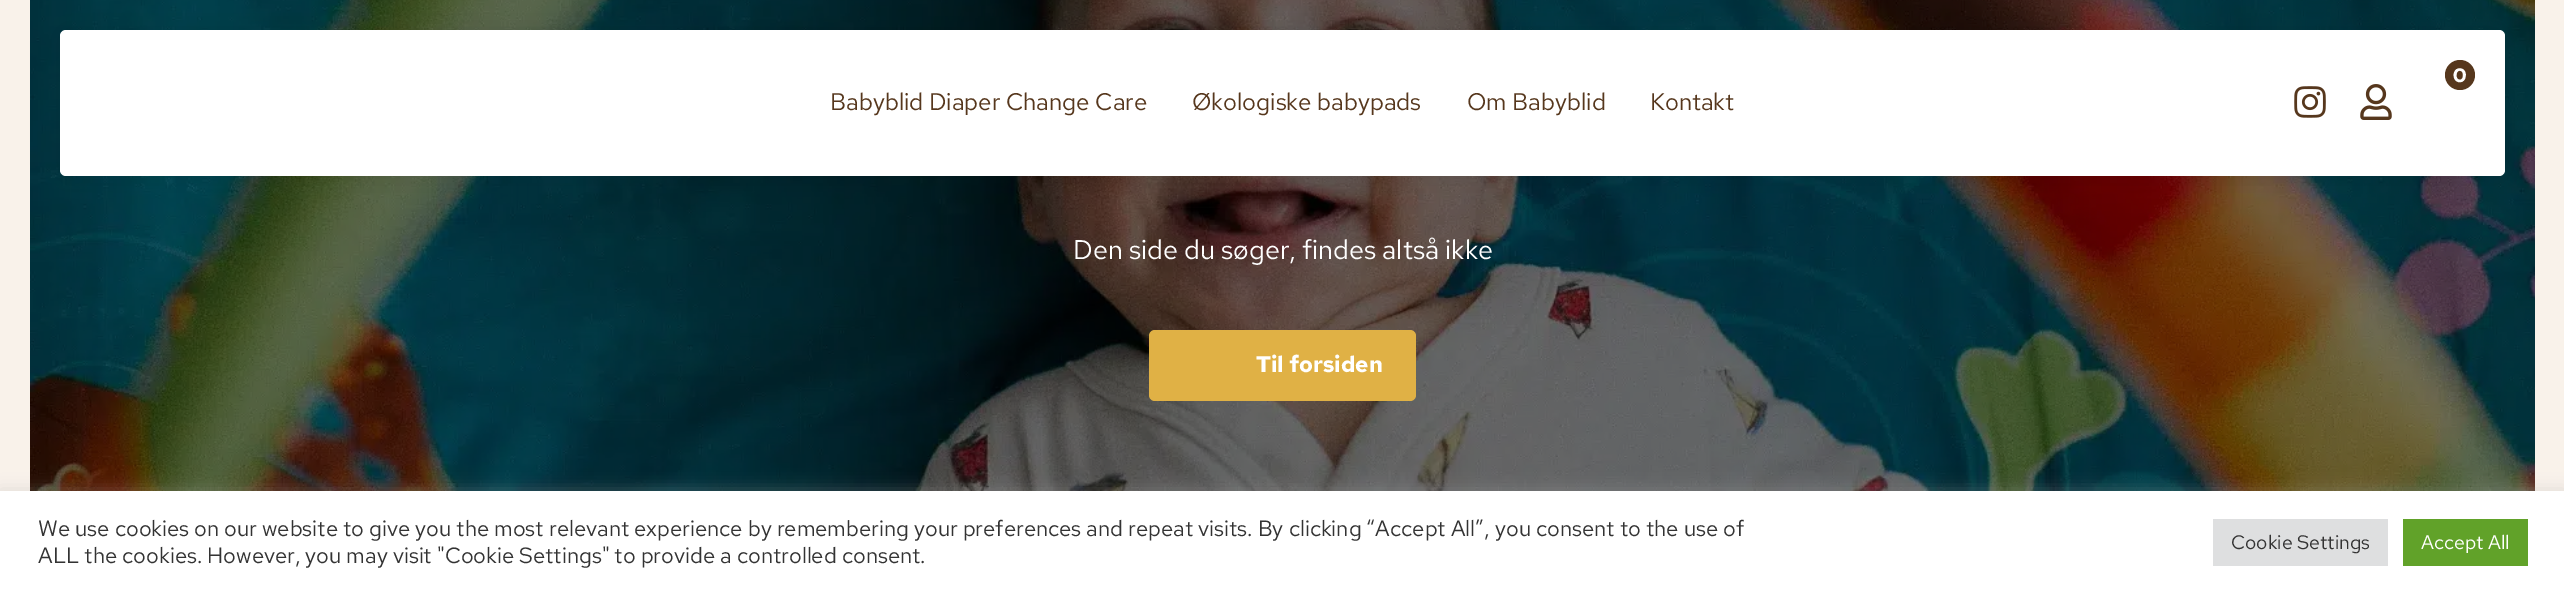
%!PS
<< /PageSize [2564 594] /PageUsesTransparency true >> setpagedevice
/rgb { 3 { 255 div 3 1 roll } repeat setrgbcolor } def
/font { [ exch dup neg 0 0 3 -1 roll 0 0 ] selectfont } def
/alpha { dup .setfillconstantalpha .setstrokeconstantalpha } def
/circle { newpath 0 360 arc closepath } def
/roundrect { 5 dict begin { /r /h /w /y /x } { exch def } forall
  x r add y moveto x w add y 2 copy h add r arct x w add y h add x 1 index r arct
  x y h add x y r arct x y 2 copy exch w add exch r arct closepath end } def
/shadow { 12 dict begin { /a /b /q /h /w /y /x } { exch def } forall gsave /was 0 def
  9 -2 -9 { dup b mul 4 div /e exch def 1 sub .425 mul 2.718 exch exp 1 add a .99 .min exch div /now exch def
    1 1 now sub 1 was sub div sub alpha /was now def
    w h .min e 2 mul add 0 gt { x e sub y e sub w e 2 mul add h e 2 mul add
      q e add b .6 mul add w h .min 2 div e add .min 0 .max roundrect fill } if } for grestore end } def
/picture { 5 dict begin { /h /w /y /x /name } { exch def } forall
  gsave x y translate w h scale
  w h 8 [w 0 0 h 0 0] name (r) file false 3 colorimage grestore end } def
0 .pushpdf14devicefilter
0 594 translate 1 -1 scale
4 setmiterlimit
249 242 234 rgb
0 0 2564 594 rectfill
(img/3.rgb) 30 0 2505 491 picture
0.55 alpha
0 0 0 rgb
30 0 2505 491 rectfill
1 alpha
60 30 2445 146 6 13.5 0.1 shadow
255 255 255 rgb
60 30 2445 146 6 roundrect fill
86 55 29 rgb
2460 75 15 circle fill
(img/1.rgb) 2294 86 32 32 picture
(img/2.rgb) 2360 84 32 36 picture
224 177 69 rgb
1149 330 267 71 6 roundrect fill
172 171 171 rgb
0 489 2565 104 0 7.5 0.3 shadow
[
  [0 491 2564 103 255 255 255]
  [2213 519 175 47 222 223 224]
  [2403 519 125 47 97 162 41]
] { aload pop rgb rectfill } forall
/RedHatDisplay-Black 19.5 font
255 255 255 rgb
2453 82 moveto (0) show
/RedHatText-Regular 24 font
86 55 29 rgb
[
  [(Babyblid Diaper Change Care) 830 110]
  [(Økologiske babypads) 1192 110]
  [(Om Babyblid) 1467 110]
  [(Kontakt) 1650 110]
] { aload pop moveto show } forall
/RedHatText-Regular 27 font
255 255 255 rgb
1073 259 moveto (Den side du søger, findes altså ikke) show
/RedHatText-Bold 22.5 font
1256 372 moveto (Til forsiden) show
/RedHatText-Regular 22 font
51 51 51 rgb
38 536 moveto (We use cookies on our website to give you the most relevant experience by remembering your preferences and repeat visits. By clicking “Accept All”, you consent to the use of) show
38 563 moveto (ALL the cookies. However, you may visit "Cookie Settings" to provide a controlled consent.) show
/RedHatText-Regular 19.5 font
2231 549 moveto (Cookie Settings) show
255 255 255 rgb
2421 549 moveto (Accept All) show
.poppdf14devicefilter showpage
